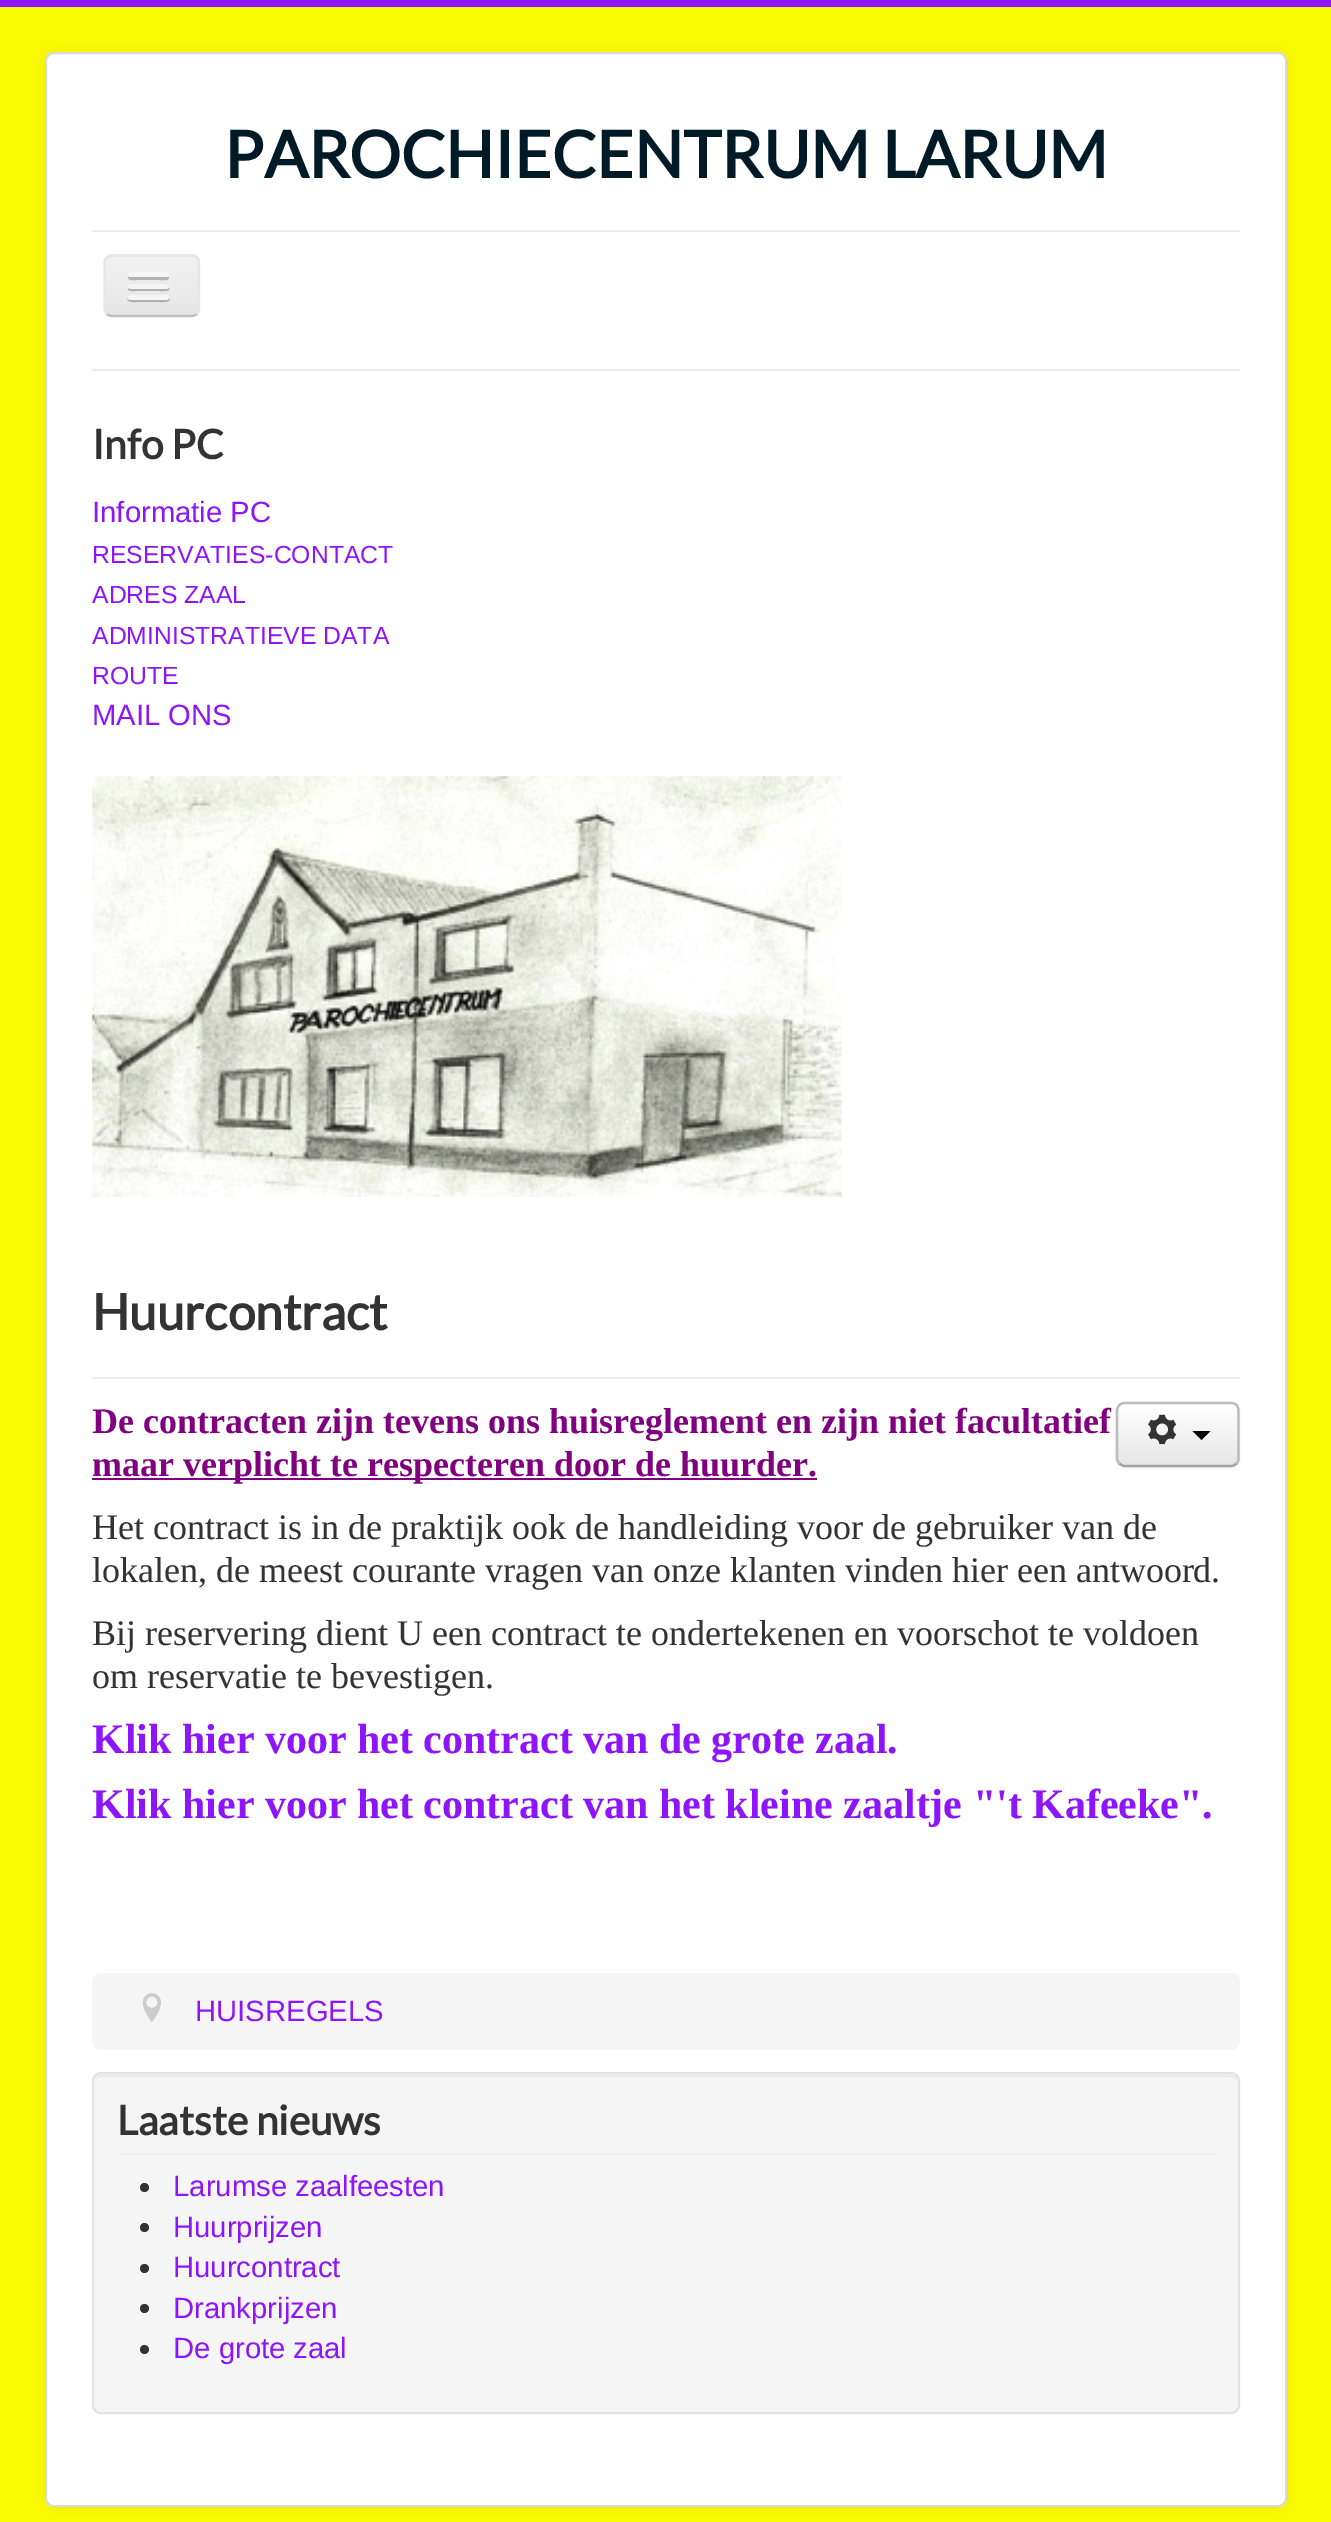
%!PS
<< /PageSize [1331 2522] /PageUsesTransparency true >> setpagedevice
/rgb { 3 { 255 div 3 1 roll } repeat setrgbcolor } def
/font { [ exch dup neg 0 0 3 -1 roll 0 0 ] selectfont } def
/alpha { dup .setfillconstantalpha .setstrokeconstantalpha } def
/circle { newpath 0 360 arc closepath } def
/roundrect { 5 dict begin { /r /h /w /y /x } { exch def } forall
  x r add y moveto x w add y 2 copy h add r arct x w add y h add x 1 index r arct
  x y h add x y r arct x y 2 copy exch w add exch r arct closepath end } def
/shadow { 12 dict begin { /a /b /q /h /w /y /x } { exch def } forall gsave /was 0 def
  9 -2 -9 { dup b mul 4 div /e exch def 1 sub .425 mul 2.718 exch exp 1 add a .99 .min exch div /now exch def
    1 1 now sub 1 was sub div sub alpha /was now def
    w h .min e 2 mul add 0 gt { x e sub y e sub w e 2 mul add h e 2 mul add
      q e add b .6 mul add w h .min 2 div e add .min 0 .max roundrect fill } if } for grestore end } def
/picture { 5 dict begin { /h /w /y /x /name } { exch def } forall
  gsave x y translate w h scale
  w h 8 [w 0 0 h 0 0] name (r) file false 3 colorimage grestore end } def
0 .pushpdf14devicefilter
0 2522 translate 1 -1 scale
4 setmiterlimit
250 250 3 rgb
0 0 1331 2522 rectfill
142 20 250 rgb
0 0 1331 7 rectfill
0 0 0 rgb
45 52 1242 2455 9 7 0.05 shadow
255 255 255 rgb
45 52 1242 2455 9 roundrect fill
0.15 alpha
0 0 0 rgb
2 setlinewidth
46 53 1240 2453 8 roundrect stroke
1 alpha
236 236 236 rgb
92 230 1148 2 rectfill
92 369 1148 2 rectfill
237 237 237 rgb
104 254 96 63 9 roundrect fill
gsave
104 254 96 63 9 roundrect clip newpath
gsave 104 257 moveto 200 257 lineto 200 315 lineto 104 315 lineto closepath clip newpath
<< /ShadingType 2 /ColorSpace /DeviceRGB /Coords [152 257 152 315] /Extend [true true] /Function << /FunctionType 2 /Domain [0 1] /C0 [0.949 0.949 0.949] /C1 [0.902 0.902 0.902] /N 1 >> >> shfill grestore
grestore
191 191 191 rgb
2.2 setlinewidth
197 314 moveto 195.5 315.5 193.5 316 191 316 curveto 112.5 316 lineto 110.5 316 108.5 315.5 107 314 curveto stroke
230 230 230 rgb
107 314 moveto 105.5 312.5 104.5 310.5 104.5 308 curveto 104.5 263 lineto 104.5 261 105.5 259 107 257.5 curveto 108.5 256 110.5 255.5 112.5 255.5 curveto 191 255.5 lineto 193.5 255.5 195.5 256 197 257.5 curveto 198.5 259 199 261 199 263 curveto 199 308 lineto 199 310.5 198.5 312.5 197 314 curveto stroke
178 178 178 rgb
129 276 moveto 128 278 lineto 129 281 135 280 136 280 curveto 160 280 lineto 162 280 168 281 169 278 curveto 168 276 lineto 167 277 lineto 130 277 lineto closepath fill
245 245 245 rgb
128 272 41 5 2.5 roundrect fill
176 176 176 rgb
129 287 moveto 124 292 136 291 136 291 curveto 160 291 lineto 161 291 173 292 168 287 curveto 167 288 lineto 130 288 lineto closepath fill
245 245 245 rgb
128 284 41 5 2.5 roundrect fill
175 175 175 rgb
128 298 moveto 125 303 136 302 136 302 curveto 160 302 lineto 161 302 172 303 169 298 curveto 168 299 167 299 166 299 curveto 130 299 lineto 130 299 129 299 128 298 curveto closepath fill
245 245 245 rgb
128 295 41 5 2.5 roundrect fill
(img/1.rgb) 92 776 750 421 picture
238 238 238 rgb
92 1377 1148 2 rectfill
0 0 0 rgb
1116 1404 124 65 9 2 0.05 shadow
gsave
1116 1402 124 65 9 roundrect clip newpath
gsave 1116 1404 moveto 1240 1404 lineto 1240 1465 lineto 1116 1465 lineto closepath clip newpath
<< /ShadingType 2 /ColorSpace /DeviceRGB /Coords [1178 1404 1178 1465] /Extend [true true] /Function << /FunctionType 2 /Domain [0 1] /C0 [1 1 1] /C1 [0.902 0.902 0.902] /N 1 >> >> shfill grestore
grestore
162 162 162 rgb
1236.5 1463.5 moveto 1235 1465 1233 1466 1231 1466 curveto 1125 1466 lineto 1123 1466 1121 1465 1119.5 1463.5 curveto stroke
187 187 187 rgb
1119.5 1463.5 moveto 1118 1462 1117 1460 1117 1458 curveto 1117 1411 lineto 1117 1408.5 1118 1406.5 1119.5 1405 curveto 1121 1403.5 1123 1403 1125 1403 curveto 1231 1403 lineto 1233 1403 1235 1403.5 1236.5 1405 curveto 1238 1406.5 1238.5 1408.5 1238.5 1411 curveto 1238.5 1458 lineto 1238.5 1460 1238 1462 1236.5 1463.5 curveto stroke
(img/2.rgb) 1148 1414 29 31 picture
0 0 0 rgb
1192.5 1431 moveto 1210.5 1431 lineto 1201.5 1440 lineto closepath fill
128 0 128 rgb
92 1478 725 2 rectfill
245 245 245 rgb
92 1973 1148 77 9 roundrect fill
(img/3.rgb) 142 1993 19 29 picture
92 2072 1148 342 9 roundrect fill
233 233 233 rgb
101 2077 moveto 1231 2077 lineto 1234 2077 1238 2080 1238 2084 curveto 1238 2082 lineto 1238 2078 1235 2075 1231 2075 curveto 102 2075 lineto 99 2075 96 2077 95 2080 curveto 97 2078 99 2077 101 2077 curveto closepath fill
227 227 227 rgb
2 setlinewidth
93 2073 1146 340 8 roundrect stroke
238 238 238 rgb
117 2153 1098 2 rectfill
51 51 51 rgb
144.5 2187.5 4.5 circle fill
144.5 2227.5 4.5 circle fill
144.5 2268.5 4.5 circle fill
144.5 2308.5 4.5 circle fill
144.5 2349.5 4.5 circle fill
/Lato-Bold 64.75 font
0 26 39 rgb
224 178 moveto (PAROCHIECENTRUM LARUM) show
/Lato-Bold 40.5 font
51 51 51 rgb
92 459 moveto (Info PC) show
/LiberationSans-Regular 29.25 font
142 20 250 rgb
92 522 moveto (Informatie PC) show
/LiberationSans-Regular 24.75 font
[
  [(RESERVATIES-CONTACT) 92 563]
  [(ADRES ZAAL) 92 603]
  [(ADMINISTRATIEVE DATA) 92 644]
  [(ROUTE) 92 684]
] { aload pop moveto show } forall
/LiberationSans-Regular 29.25 font
92 725 moveto (MAIL ONS) show
/Lato-Bold 49.5 font
51 51 51 rgb
92 1330 moveto (Huurcontract) show
/LiberationSerif-Bold 36 font
128 0 128 rgb
92 1433 moveto (De contracten zijn tevens ons huisreglement en zijn niet facultatief) show
92 1476 moveto (maar verplicht te respecteren door de huurder.) show
/LiberationSerif-Regular 36 font
51 51 51 rgb
[
  [(Het contract is in de praktijk ook de handleiding voor de gebruiker van de) 92 1539]
  [(lokalen, de meest courante vragen van onze klanten vinden hier een antwoord.) 92 1582]
  [(Bij reservering dient U een contract te ondertekenen en voorschot te voldoen) 92 1645]
  [(om reservatie te bevestigen.) 92 1688]
] { aload pop moveto show } forall
/LiberationSerif-Bold 42 font
142 20 250 rgb
92 1753 moveto (Klik hier voor het contract van de grote zaal.) show
92 1818 moveto (Klik hier voor het contract van het kleine zaaltje "'t Kafeeke".) show
/LiberationSans-Regular 29.25 font
195 2021 moveto (HUISREGELS) show
/Lato-Bold 40.5 font
51 51 51 rgb
117 2135 moveto (Laatste nieuws) show
/LiberationSans-Regular 29.25 font
142 20 250 rgb
[
  [(Larumse zaalfeesten) 173 2196]
  [(Huurprijzen) 173 2237]
  [(Huurcontract) 173 2277]
  [(Drankprijzen) 173 2318]
  [(De grote zaal) 173 2358]
] { aload pop moveto show } forall
.poppdf14devicefilter showpage
